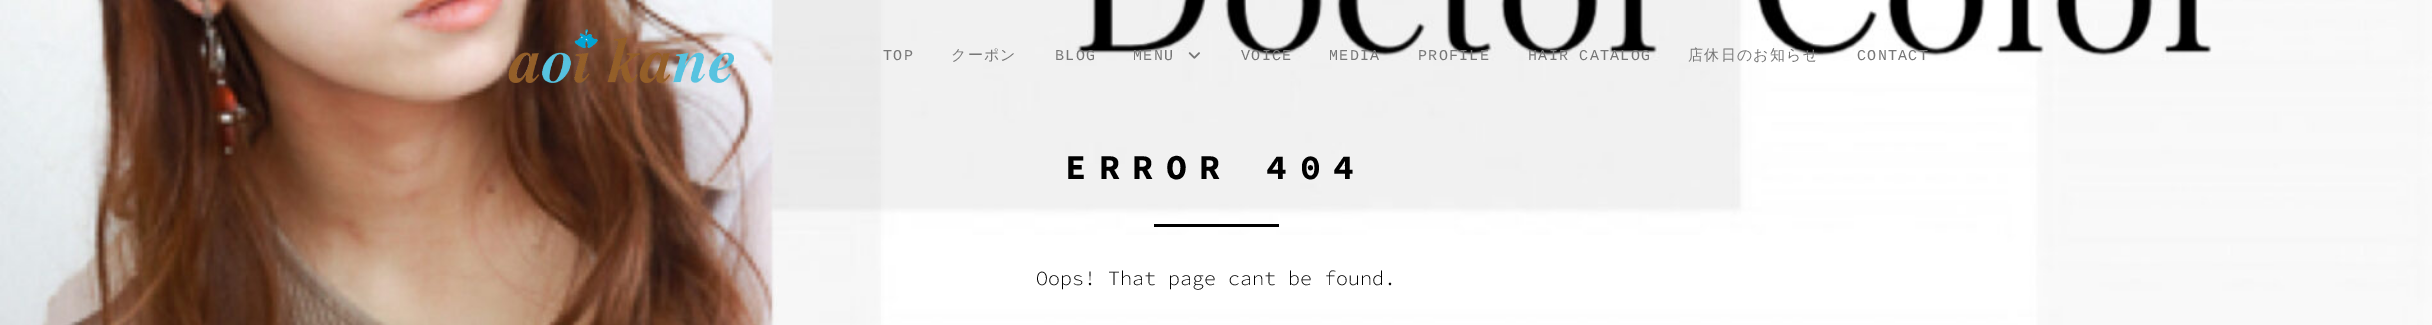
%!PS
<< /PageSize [2432 325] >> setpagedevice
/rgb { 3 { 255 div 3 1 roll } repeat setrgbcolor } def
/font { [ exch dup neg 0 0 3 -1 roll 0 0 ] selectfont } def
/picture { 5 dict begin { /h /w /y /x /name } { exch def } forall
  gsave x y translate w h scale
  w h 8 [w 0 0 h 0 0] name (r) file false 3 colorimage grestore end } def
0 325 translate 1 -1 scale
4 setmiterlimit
255 255 255 rgb
0 0 2432 325 rectfill
(img/3.rgb) 0 0 2432 325 picture
(img/1.rgb) 508 29 226 54 picture
(img/2.rgb) 1188 52 12 7 picture
0 0 0 rgb
1154 224 125 3 rectfill
/LiberationMono-Regular 15 font
119 119 119 rgb
883 60 moveto 1.25 0 (TOP) ashow
/WenQuanYiZenHei-Medium 15 font
951 60 moveto 1.25 0 (クーポン) ashow
/LiberationMono-Regular 15 font
1055 60 moveto 1.25 0 (BLOG) ashow
1133 60 moveto 1.25 0 (MENU) ashow
1241 60 moveto 1.25 0 (VOICE) ashow
1329 60 moveto 1.25 0 (MEDIA) ashow
1418 60 moveto 1.25 0 (PROFILE) ashow
1528 60 moveto 1.25 0 (HAIR CATALOG) ashow
/WenQuanYiZenHei-Medium 15 font
1688 60 moveto 1.25 0 (店休日のお知らせ) ashow
/LiberationMono-Regular 15 font
1857 60 moveto 1.25 0 (CONTACT) ashow
/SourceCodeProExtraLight-Bold 35 font
0 0 0 rgb
1065 179 moveto 12.5 0 (ERROR 404) ashow
/SourceCodeProExtraLight-Light 20 font
1036 285 moveto (Oops! That page cant be found.) show
showpage
